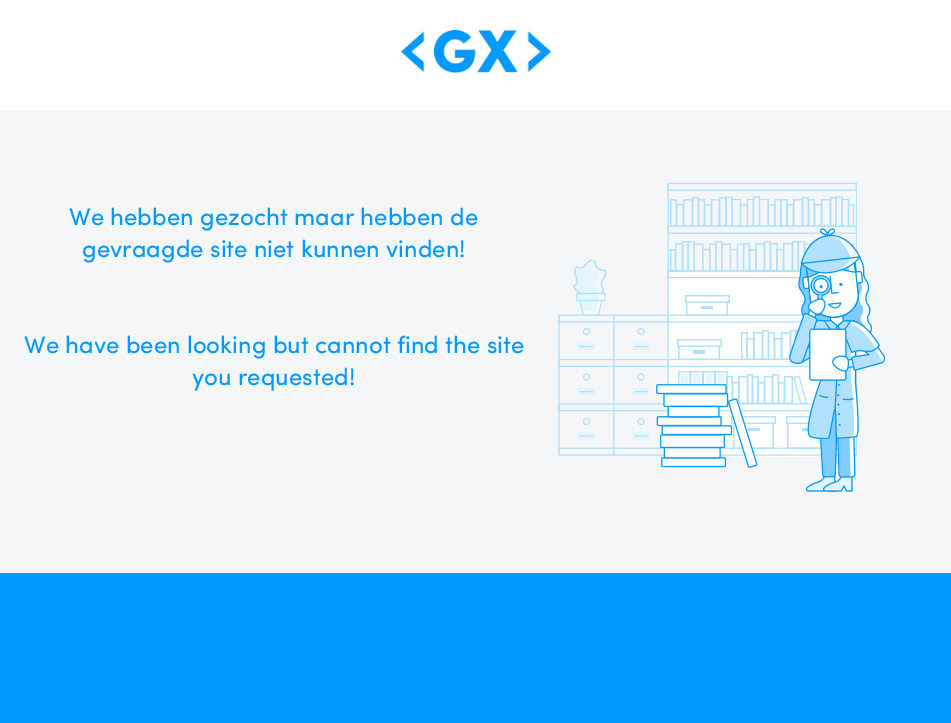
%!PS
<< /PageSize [951 723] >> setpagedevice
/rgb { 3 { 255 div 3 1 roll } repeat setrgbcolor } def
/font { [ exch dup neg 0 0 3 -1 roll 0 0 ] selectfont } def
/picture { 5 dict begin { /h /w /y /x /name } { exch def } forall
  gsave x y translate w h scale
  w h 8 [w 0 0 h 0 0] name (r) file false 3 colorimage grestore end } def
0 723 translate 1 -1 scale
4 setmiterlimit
245 246 247 rgb
0 0 951 723 rectfill
255 255 255 rgb
0 0 951 110 rectfill
(img/1.rgb) 401 30 150 43 picture
(img/2.rgb) 558 182 328 310 picture
0 153 255 rgb
0 573 951 150 rectfill
/Sofia-Regular 24 font
[
  [(We hebben gezocht maar hebben de) 69 225]
  [(gevraagde site niet kunnen vinden!) 82 257]
  [(We have been looking but cannot find the site) 24 353]
  [(you requested!) 192 385]
] { aload pop moveto show } forall
showpage
